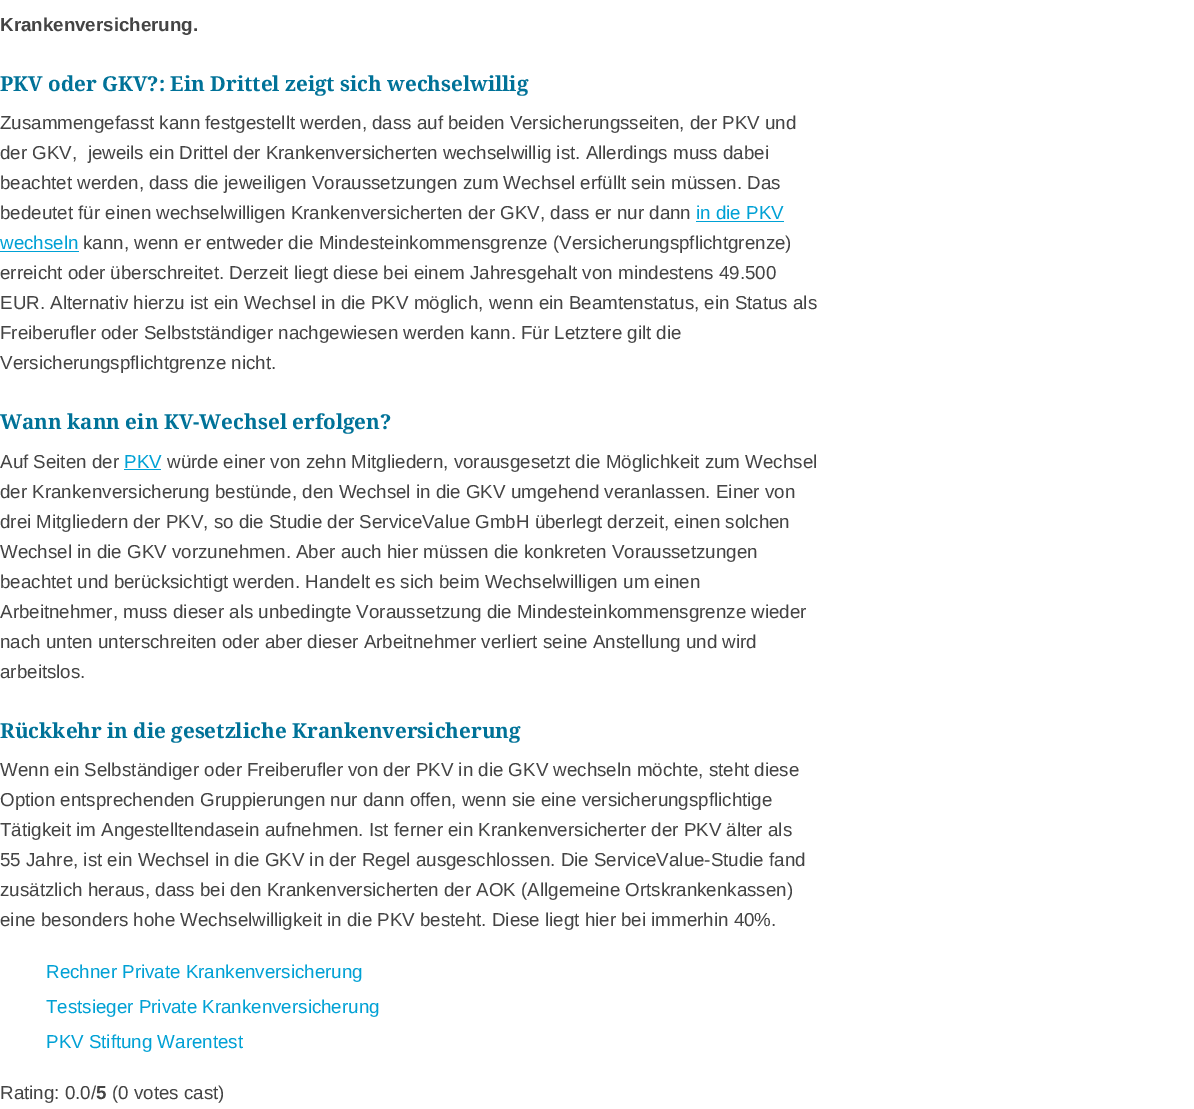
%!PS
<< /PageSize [1194 1109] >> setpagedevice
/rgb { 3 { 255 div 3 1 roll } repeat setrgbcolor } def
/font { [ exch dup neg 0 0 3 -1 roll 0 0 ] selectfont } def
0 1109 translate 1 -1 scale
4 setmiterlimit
255 255 255 rgb
0 0 1194 1109 rectfill
[
  [696 221 88 1 0 161 213]
  [0 251 79 1 0 161 213]
  [124 469 37 1 0 161 213]
] { aload pop rgb rectfill } forall
/LiberationSans-Bold 18.75 font
68 68 68 rgb
0 31 moveto (Krankenversicherung.) show
/NotoSerif-Bold 20.6 font
0 114 152 rgb
0 91 moveto (PKV oder GKV?: Ein Drittel zeigt sich wechselwillig) show
/LiberationSans-Regular 18.75 font
68 68 68 rgb
[
  [(Zusammengefasst kann festgestellt werden, dass auf beiden Versicherungsseiten, der PKV und) 0 129]
  [(der GKV,  jeweils ein Drittel der Krankenversicherten wechselwillig ist. Allerdings muss dabei) 0 159]
  [(beachtet werden, dass die jeweiligen Voraussetzungen zum Wechsel erfüllt sein müssen. Das) 0 189]
  [(bedeutet für einen wechselwilligen Krankenversicherten der GKV, dass er nur dann) 0 219]
] { aload pop moveto show } forall
0 161 213 rgb
696 219 moveto (in die PKV) show
0 249 moveto (wechseln) show
68 68 68 rgb
[
  [(kann, wenn er entweder die Mindesteinkommensgrenze \(Versicherungspflichtgrenze\)) 83 249]
  [(erreicht oder überschreitet. Derzeit liegt diese bei einem Jahresgehalt von mindestens 49.500) 0 279]
  [(EUR. Alternativ hierzu ist ein Wechsel in die PKV möglich, wenn ein Beamtenstatus, ein Status als) 0 309]
  [(Freiberufler oder Selbstständiger nachgewiesen werden kann. Für Letztere gilt die) 0 339]
  [(Versicherungspflichtgrenze nicht.) 0 369]
] { aload pop moveto show } forall
/NotoSerif-Bold 20.6 font
0 114 152 rgb
0 429 moveto (Wann kann ein KV-Wechsel erfolgen?) show
/LiberationSans-Regular 18.75 font
68 68 68 rgb
0 468 moveto (Auf Seiten der) show
0 161 213 rgb
124 468 moveto (PKV) show
68 68 68 rgb
[
  [(würde einer von zehn Mitgliedern, vorausgesetzt die Möglichkeit zum Wechsel) 167 468]
  [(der Krankenversicherung bestünde, den Wechsel in die GKV umgehend veranlassen. Einer von) 0 498]
  [(drei Mitgliedern der PKV, so die Studie der ServiceValue GmbH überlegt derzeit, einen solchen) 0 528]
  [(Wechsel in die GKV vorzunehmen. Aber auch hier müssen die konkreten Voraussetzungen) 0 558]
  [(beachtet und berücksichtigt werden. Handelt es sich beim Wechselwilligen um einen) 0 588]
  [(Arbeitnehmer, muss dieser als unbedingte Voraussetzung die Mindesteinkommensgrenze wieder) 0 618]
  [(nach unten unterschreiten oder aber dieser Arbeitnehmer verliert seine Anstellung und wird) 0 648]
  [(arbeitslos.) 0 678]
] { aload pop moveto show } forall
/NotoSerif-Bold 20.6 font
0 114 152 rgb
0 738 moveto (Rückkehr in die gesetzliche Krankenversicherung) show
/LiberationSans-Regular 18.75 font
68 68 68 rgb
[
  [(Wenn ein Selbständiger oder Freiberufler von der PKV in die GKV wechseln möchte, steht diese) 0 776]
  [(Option entsprechenden Gruppierungen nur dann offen, wenn sie eine versicherungspflichtige) 0 806]
  [(Tätigkeit im Angestelltendasein aufnehmen. Ist ferner ein Krankenversicherter der PKV älter als) 0 836]
  [(55 Jahre, ist ein Wechsel in die GKV in der Regel ausgeschlossen. Die ServiceValue-Studie fand) 0 866]
  [(zusätzlich heraus, dass bei den Krankenversicherten der AOK \(Allgemeine Ortskrankenkassen\)) 0 896]
  [(eine besonders hohe Wechselwilligkeit in die PKV besteht. Diese liegt hier bei immerhin 40%.) 0 926]
] { aload pop moveto show } forall
0 161 213 rgb
[
  [(Rechner Private Krankenversicherung) 46 978]
  [(Testsieger Private Krankenversicherung) 46 1013]
  [(PKV Stiftung Warentest) 46 1048]
] { aload pop moveto show } forall
68 68 68 rgb
0 1099 moveto (Rating: 0.0/) show
/LiberationSans-Bold 18.75 font
96 1099 moveto (5) show
/LiberationSans-Regular 18.75 font
112 1099 moveto (\(0 votes cast\)) show
showpage
